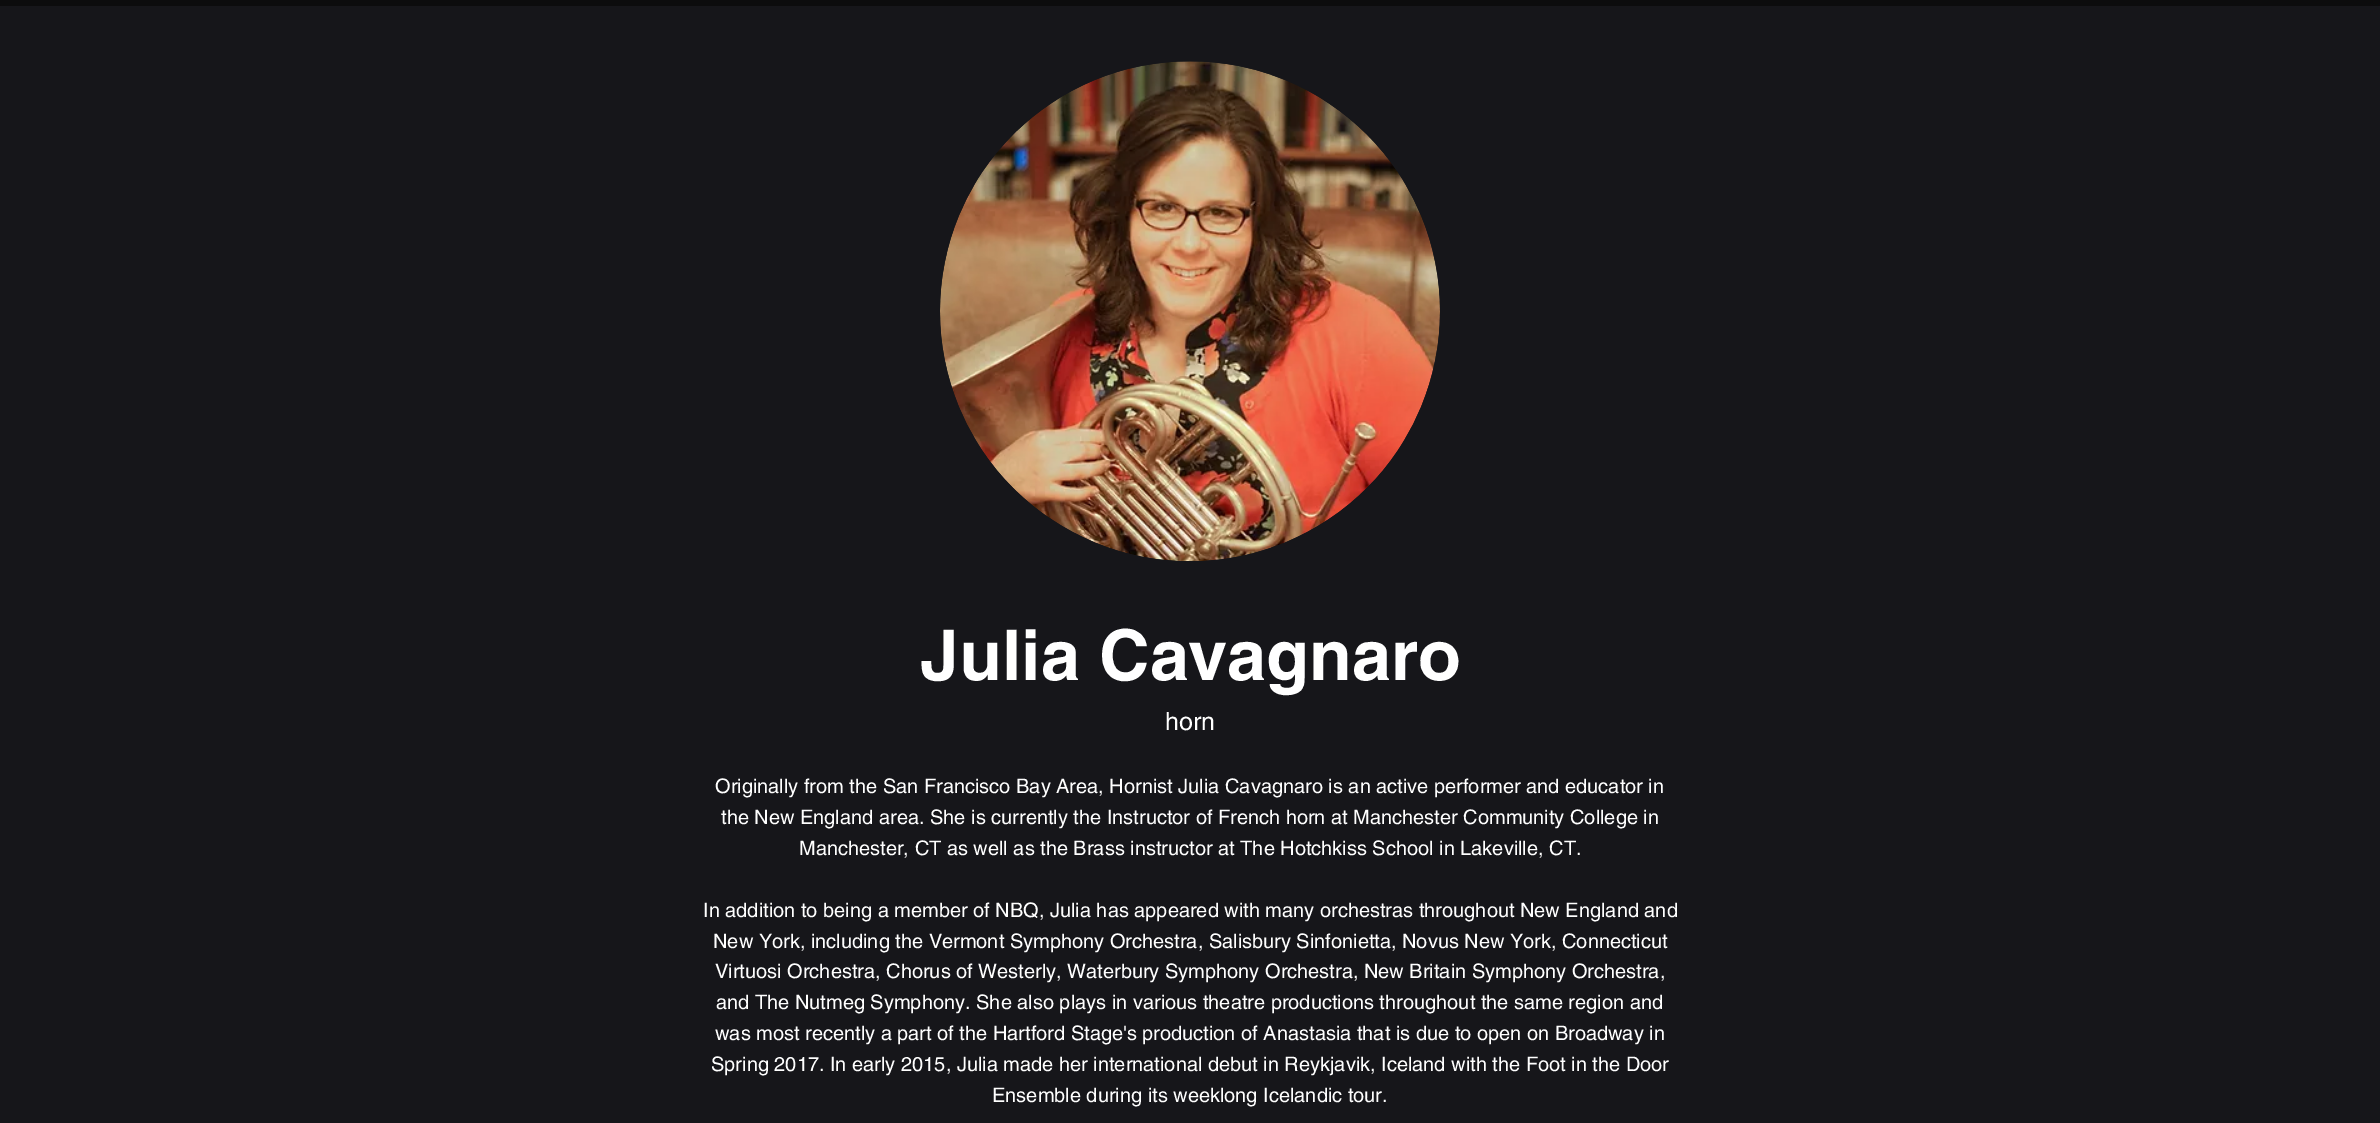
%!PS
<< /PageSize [2380 1123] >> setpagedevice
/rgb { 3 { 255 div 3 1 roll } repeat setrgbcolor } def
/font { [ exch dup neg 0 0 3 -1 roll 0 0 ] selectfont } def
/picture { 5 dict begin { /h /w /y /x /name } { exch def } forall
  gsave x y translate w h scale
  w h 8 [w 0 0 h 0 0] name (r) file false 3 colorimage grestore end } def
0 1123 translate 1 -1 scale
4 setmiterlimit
22 22 26 rgb
0 0 2380 1123 rectfill
12 12 13 rgb
0 0 2380 6 rectfill
(img/1.rgb) 940 61 500 500 picture
/helvetica-Bold 70 font
255 255 255 rgb
920 680 moveto (Julia Cavagnaro) show
/helvetica-Regular 25 font
1165 730 moveto (horn) show
/helvetica-Regular 20 font
[
  [(Originally from the San Francisco Bay Area, Hornist Julia Cavagnaro is an active performer and educator in) 715 793]
  [(the New England area. She is currently the Instructor of French horn at Manchester Community College in) 721 824]
  [(Manchester, CT as well as the Brass instructor at The Hotchkiss School in Lakeville, CT.) 799 855]
  [(In addition to being a member of NBQ, Julia has appeared with many orchestras throughout New England and) 703 917]
  [(New York, including the Vermont Symphony Orchestra, Salisbury Sinfonietta, Novus New York, Connecticut) 713 948]
  [(Virtuosi Orchestra, Chorus of Westerly, Waterbury Symphony Orchestra, New Britain Symphony Orchestra,) 715 978]
  [(and The Nutmeg Symphony. She also plays in various theatre productions throughout the same region and) 716 1009]
  [(was most recently a part of the Hartford Stage's production of Anastasia that is due to open on Broadway in) 715 1040]
  [(Spring 2017. In early 2015, Julia made her international debut in Reykjavik, Iceland with the Foot in the Door) 711 1071]
  [(Ensemble during its weeklong Icelandic tour.) 992 1102]
] { aload pop moveto show } forall
showpage
